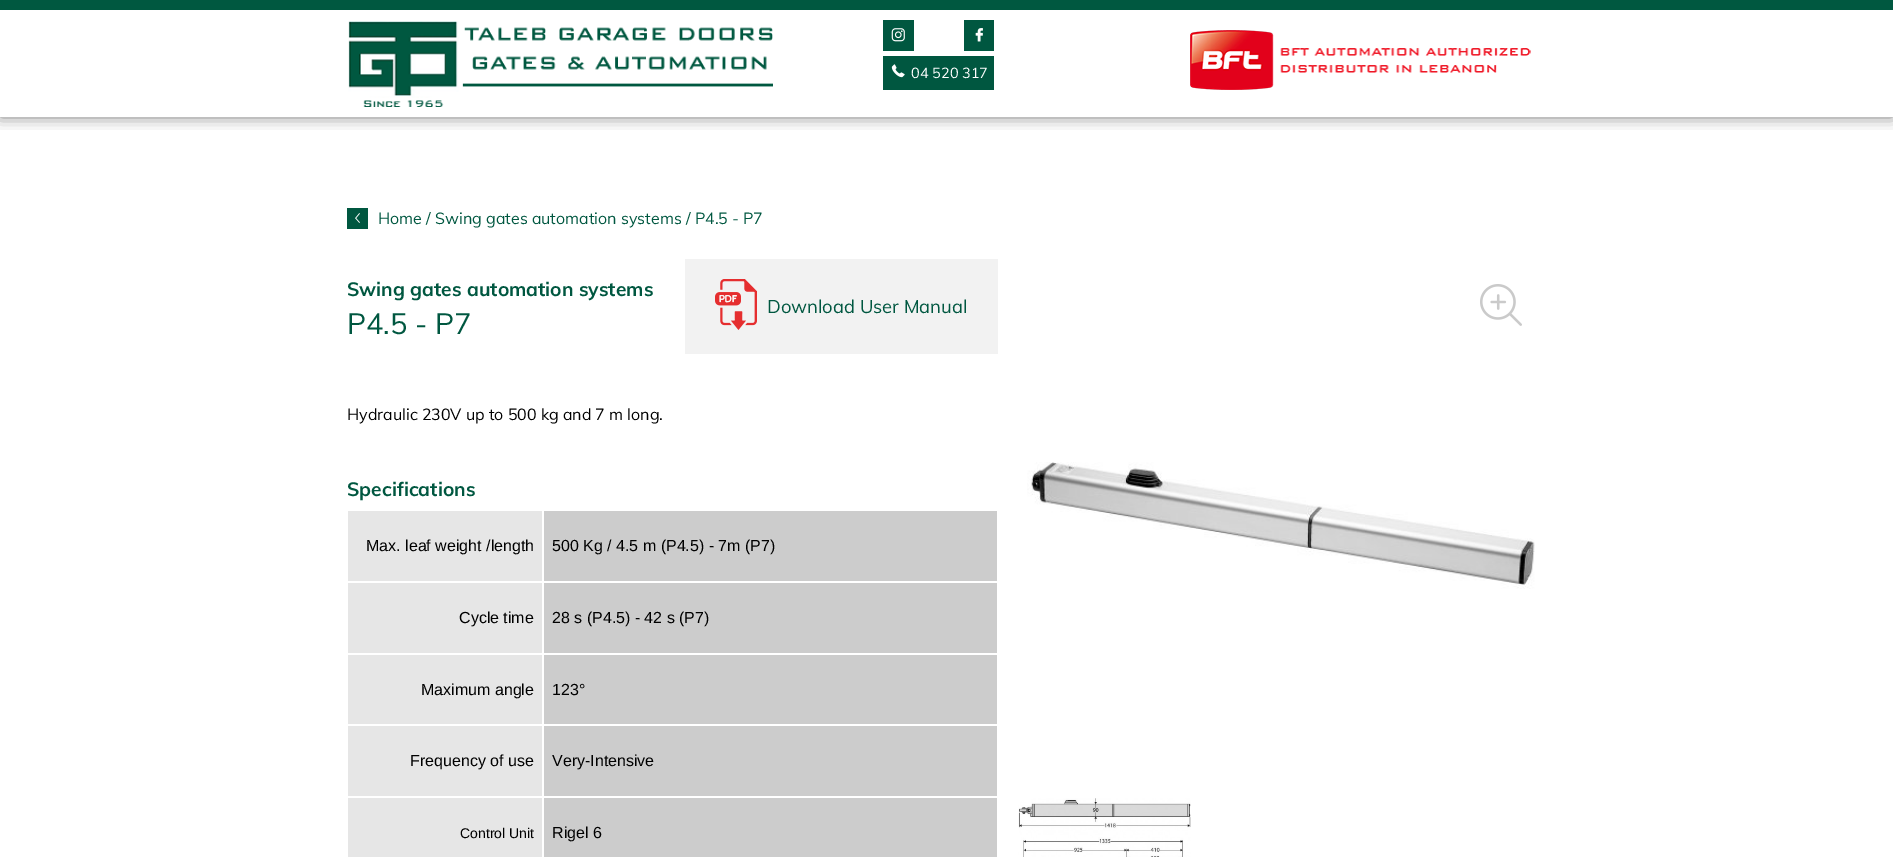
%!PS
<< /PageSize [1893 857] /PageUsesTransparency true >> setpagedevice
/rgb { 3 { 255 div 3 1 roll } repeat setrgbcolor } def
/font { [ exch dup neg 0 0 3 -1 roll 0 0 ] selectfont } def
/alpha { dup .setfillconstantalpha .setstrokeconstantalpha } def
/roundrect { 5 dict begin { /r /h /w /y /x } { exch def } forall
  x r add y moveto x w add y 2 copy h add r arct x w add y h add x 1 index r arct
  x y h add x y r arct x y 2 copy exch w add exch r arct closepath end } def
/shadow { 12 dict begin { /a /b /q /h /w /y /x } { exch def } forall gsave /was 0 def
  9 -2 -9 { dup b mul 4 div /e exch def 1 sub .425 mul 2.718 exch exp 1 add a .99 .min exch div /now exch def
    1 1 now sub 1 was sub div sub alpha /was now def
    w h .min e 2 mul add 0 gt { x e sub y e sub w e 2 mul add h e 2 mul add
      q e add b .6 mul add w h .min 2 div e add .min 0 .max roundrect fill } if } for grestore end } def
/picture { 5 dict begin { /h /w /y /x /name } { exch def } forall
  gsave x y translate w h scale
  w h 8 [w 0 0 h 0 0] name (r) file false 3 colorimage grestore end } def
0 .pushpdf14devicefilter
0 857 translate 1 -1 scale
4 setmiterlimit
255 255 255 rgb
0 0 1893 857 rectfill
gsave
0 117 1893 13 rectclip
0 0 0 rgb
0 0 1893 117 0 7.5 0.5 shadow
grestore
0 88 64 rgb
0 0 1893 10 rectfill
(img/1.rgb) 348 21 425 86 picture
0 87 64 rgb
883 20 31 31 rectfill
(img/2.rgb) 891 28 14 14 picture
964 20 30 31 rectfill
(img/3.rgb) 975 28 8 14 picture
883 56 111 34 rectfill
(img/4.rgb) 891 64 14 14 picture
(img/5.rgb) 1190 30 341 60 picture
(img/6.rgb) 347 208 21 21 picture
242 242 242 rgb
685 259 313 95 rectfill
(img/7.rgb) 715 279 42 51 picture
[
  [348 511 194 70 230 230 230]
  [544 511 453 70 204 204 204]
  [348 583 194 70 230 230 230]
  [544 583 453 70 204 204 204]
  [348 655 194 69 230 230 230]
  [544 655 453 69 204 204 204]
  [348 726 194 70 230 230 230]
  [544 726 453 70 204 204 204]
  [348 798 194 59 230 230 230]
  [544 798 453 59 204 204 204]
] { aload pop rgb rectfill } forall
(img/8.rgb) 1480 284 42 42 picture
(img/9.rgb) 1027 462 508 127 picture
(img/10.rgb) 1018 798 173 59 picture
/Muli-Regular 14.5 font
255 255 255 rgb
911 78 moveto (04 520 317) show
/Muli-Regular 16 font
0 87 64 rgb
378 224 moveto (Home / Swing gates automation systems / P4.5 - P7) show
/Muli-Bold 19.25 font
347 296 moveto (Swing gates automation systems) show
/Muli-Regular 29 font
347 334 moveto (P4.5 - P7) show
/Muli-Regular 18.4 font
767 313 moveto (Download User Manual) show
/Muli-Regular 16 font
0 0 0 rgb
347 420 moveto (Hydraulic 230V up to 500 kg and 7 m long.) show
/Muli-Bold 19.25 font
0 87 64 rgb
347 496 moveto (Specifications) show
/LiberationSans-Regular 16 font
0 0 0 rgb
[
  [(Max. leaf weight /length) 366 551]
  [(500 Kg / 4.5 m \(P4.5\) - 7m \(P7\)) 552 551]
  [(Cycle time) 459 623]
  [(28 s \(P4.5\) - 42 s \(P7\)) 552 623]
  [(Maximum angle) 421 695]
  [(123°) 552 695]
  [(Frequency of use) 410 766]
  [(Very-Intensive) 552 766]
] { aload pop moveto show } forall
/LiberationSans-Regular 14 font
460 838 moveto (Control Unit) show
/LiberationSans-Regular 16 font
552 838 moveto (Rigel 6) show
.poppdf14devicefilter showpage
